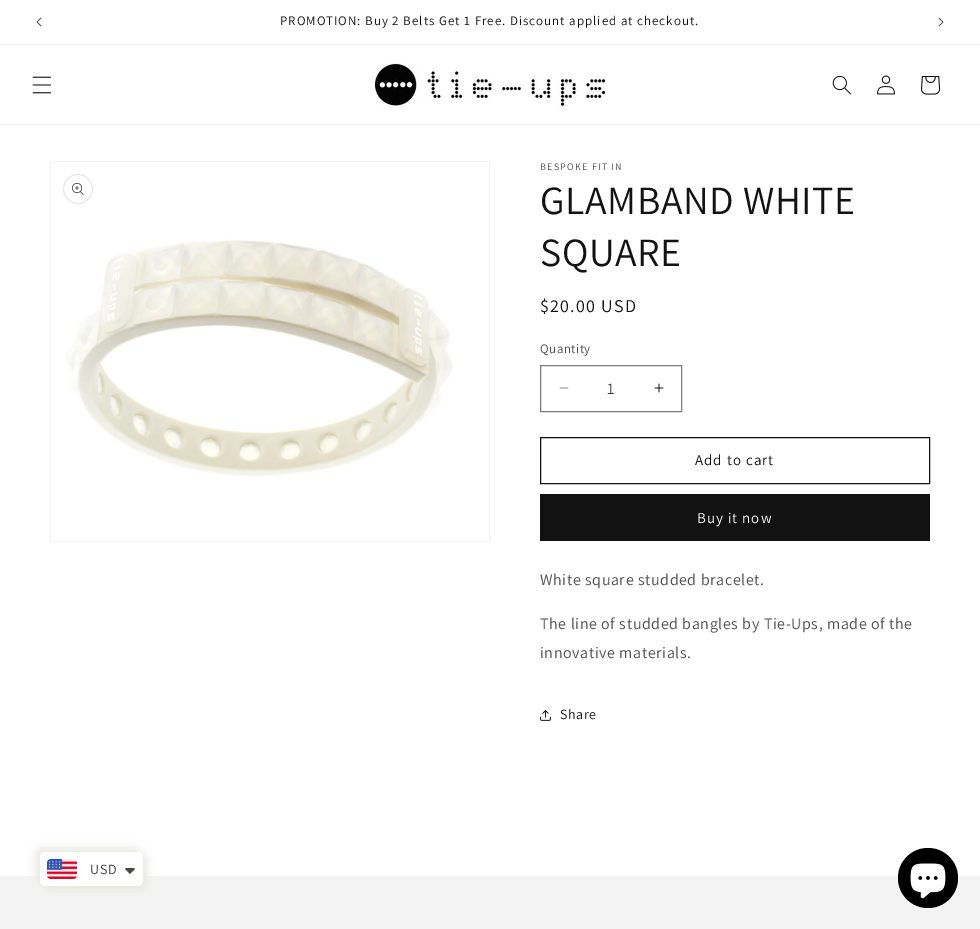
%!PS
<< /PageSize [980 929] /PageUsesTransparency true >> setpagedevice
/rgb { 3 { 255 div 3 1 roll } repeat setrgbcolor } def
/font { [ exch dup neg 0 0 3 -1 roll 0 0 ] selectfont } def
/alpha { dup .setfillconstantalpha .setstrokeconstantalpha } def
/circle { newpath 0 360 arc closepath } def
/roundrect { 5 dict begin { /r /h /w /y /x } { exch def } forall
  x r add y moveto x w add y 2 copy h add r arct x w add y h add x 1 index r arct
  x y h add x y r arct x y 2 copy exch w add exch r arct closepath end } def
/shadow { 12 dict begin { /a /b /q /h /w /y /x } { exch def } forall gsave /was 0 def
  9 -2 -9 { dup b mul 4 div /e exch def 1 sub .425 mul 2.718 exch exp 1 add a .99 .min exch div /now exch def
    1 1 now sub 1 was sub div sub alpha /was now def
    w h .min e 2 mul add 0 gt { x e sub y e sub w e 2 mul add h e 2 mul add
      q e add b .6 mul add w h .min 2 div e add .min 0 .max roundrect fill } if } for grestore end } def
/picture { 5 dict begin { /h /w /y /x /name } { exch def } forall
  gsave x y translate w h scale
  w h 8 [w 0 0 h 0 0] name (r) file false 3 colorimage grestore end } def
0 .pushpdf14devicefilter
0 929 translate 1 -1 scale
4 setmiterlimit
255 255 255 rgb
0 0 980 929 rectfill
236 236 236 rgb
0 44 980 1 rectfill
(img/1.rgb) 36 17 6 10 picture
(img/2.rgb) 938 17 6 10 picture
0 124 980 1 rectfill
(img/3.rgb) 32 76 20 18 picture
(img/4.rgb) 375 63 230 44 picture
(img/5.rgb) 832 75 19 20 picture
(img/6.rgb) 877 75 18 20 picture
(img/7.rgb) 921 76 20 19 picture
243 243 243 rgb
50.5 161.5 439 380 rectstroke
231 231 231 rgb
78 189 14.5 circle stroke
(img/8.rgb) 72 183 12 12 picture
(img/9.rgb) 65 239 388 238 picture
(img/10.rgb) 559 387 10 2 picture
(img/11.rgb) 654 383 10 10 picture
125 125 125 rgb
540.5 365.5 141 46 rectstroke
18 18 18 rgb
540.5 437.5 389 46 rectstroke
540 494 390 47 rectfill
(img/12.rgb) 540 710 11 11 picture
243 243 243 rgb
0 876 980 53 rectfill
232 232 226 rgb
36 848 103 34 5 4.5 1 shadow
44 856 103 34 5 4.5 1 shadow
255 255 255 rgb
40 852 103 34 5 roundrect fill
(img/13.rgb) 47 859 30 20 picture
71 73 66 rgb
127 868 moveto 126 868 125.5 868.5 125 869 curveto 130 874 lineto 135 869 lineto 134 868 lineto closepath fill
0 0 0 rgb
928 878 30 circle fill
(img/14.rgb) 910 863 36 36 picture
/Assistant-Regular 13 font
18 18 18 rgb
280 25 moveto 1 0 (PROMOTION: Buy 2 Belts Get 1 Free. Discount applied at checkout.) ashow
/Assistant-Regular 10 font
77 77 77 rgb
540 170 moveto 1.25 0 (BESPOKE FIT IN) ashow
/Assistant-Regular 40 font
18 18 18 rgb
540 214 moveto 0.6 0 (GLAMBAND WHITE) ashow
540 266 moveto 0.6 0 (SQUARE) ashow
/Assistant-Regular 18 font
540 312 moveto 1.25 0 ($20.00 USD) ashow
/Assistant-Regular 13 font
77 77 77 rgb
540 353 moveto 0.5 0 (Quantity) ashow
/Assistant-Regular 16 font
54 54 54 rgb
607 394 moveto (1) show
/Assistant-Regular 15 font
18 18 18 rgb
695 465 moveto 1 0 (Add to cart) ashow
255 255 255 rgb
697 523 moveto 1 0 (Buy it now) ashow
/Assistant-Regular 16 font
77 77 77 rgb
540 585 moveto 0.6 0 (White square studded bracelet.) ashow
540 629 moveto 0.6 0 (The line of studded bangles by Tie-Ups, made of the) ashow
540 658 moveto 0.6 0 (innovative materials.) ashow
/Assistant-Regular 14 font
18 18 18 rgb
560 719 moveto 0.6 0 (Share) ashow
54 54 54 rgb
90 874 moveto 0.6 0 (USD) ashow
.poppdf14devicefilter showpage
